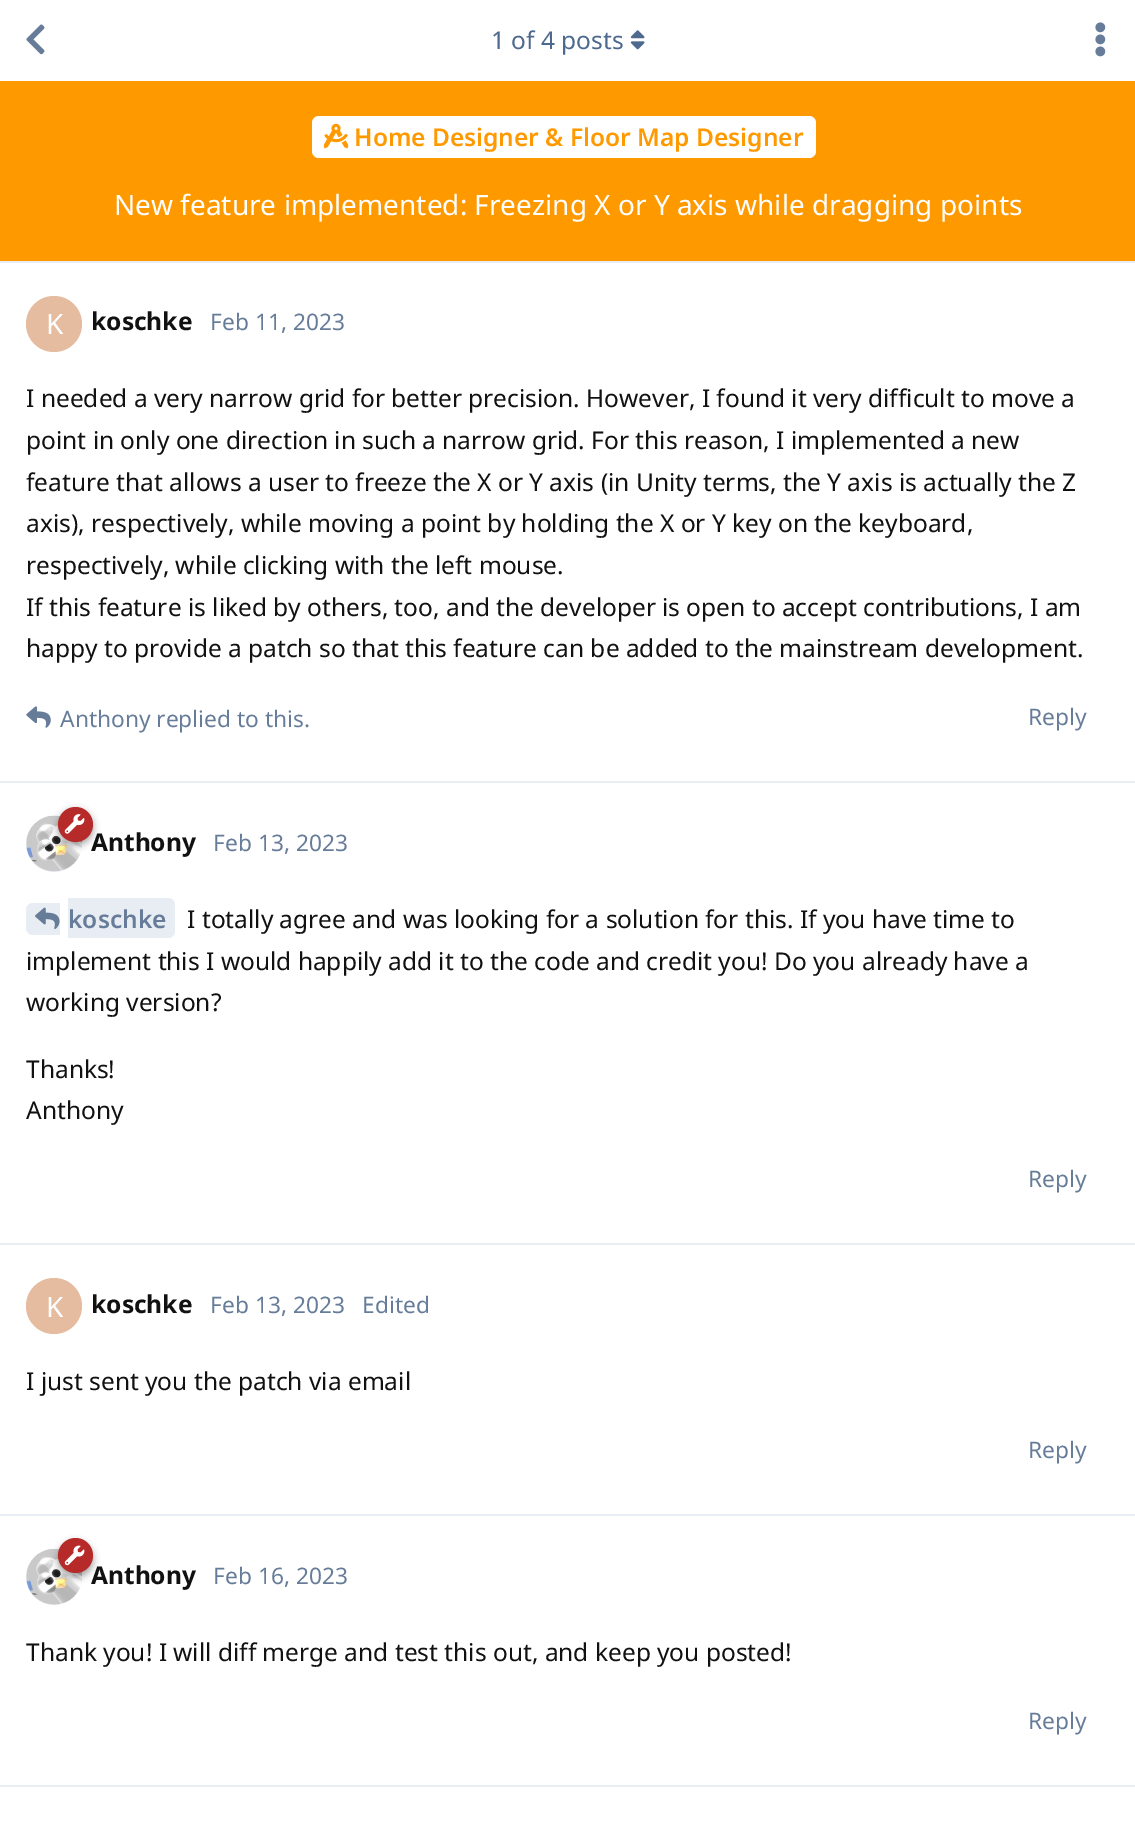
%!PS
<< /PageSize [1135 1838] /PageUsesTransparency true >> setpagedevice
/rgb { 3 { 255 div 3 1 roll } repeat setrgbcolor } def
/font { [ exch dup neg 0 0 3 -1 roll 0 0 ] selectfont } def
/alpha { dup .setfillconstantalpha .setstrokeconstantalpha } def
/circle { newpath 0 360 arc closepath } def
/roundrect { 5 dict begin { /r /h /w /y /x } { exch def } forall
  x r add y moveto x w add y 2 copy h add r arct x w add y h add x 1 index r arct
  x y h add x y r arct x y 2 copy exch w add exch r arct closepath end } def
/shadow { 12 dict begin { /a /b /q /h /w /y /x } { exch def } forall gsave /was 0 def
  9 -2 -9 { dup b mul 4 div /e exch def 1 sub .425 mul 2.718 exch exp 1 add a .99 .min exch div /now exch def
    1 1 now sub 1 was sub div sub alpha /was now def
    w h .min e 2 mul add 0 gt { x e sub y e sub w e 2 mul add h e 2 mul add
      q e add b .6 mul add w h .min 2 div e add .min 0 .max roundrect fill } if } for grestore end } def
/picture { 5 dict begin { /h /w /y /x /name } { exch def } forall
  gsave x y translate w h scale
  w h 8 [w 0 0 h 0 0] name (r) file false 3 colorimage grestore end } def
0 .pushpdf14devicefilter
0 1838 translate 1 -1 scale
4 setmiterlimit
255 255 255 rgb
0 0 1135 1838 rectfill
(img/1.rgb) 26 24 19 31 picture
232 236 243 rgb
0 261 1135 2 rectfill
(img/2.rgb) 630 30 15 20 picture
(img/3.rgb) 1095 22 11 35 picture
0 781 1135 2 rectfill
229 188 160 rgb
54 324 28 circle fill
(img/4.rgb) 26 706 25 22 picture
232 236 243 rgb
0 1243 1135 2 rectfill
54 844 28 circle fill
(img/6.rgb) 26 815 56 57 picture
0 0 0 rgb
58 810 35 35 17.5 3.5 0.35 shadow
232 236 243 rgb
33 903 moveto 60 903 lineto 60 935 lineto 33 935 lineto 29 935 26 932 26 928 curveto 26 910 lineto 26 906 29 903 33 903 curveto closepath fill
68 898 moveto 168 898 lineto 172 898 175 901 175 905 curveto 175 931 lineto 175 935 172 938 168 938 curveto 68 938 lineto closepath fill
(img/7.rgb) 35 907 25 22 picture
0 1514 1135 2 rectfill
229 188 160 rgb
54 1306 28 circle fill
232 236 243 rgb
0 1785 1135 2 rectfill
54 1577 28 circle fill
(img/9.rgb) 26 1549 56 56 picture
0 0 0 rgb
58 1542 35 35 17.5 3.5 0.35 shadow
255 153 0 rgb
0 81 1135 180 rectfill
255 255 255 rgb
312 116 504 42 7 roundrect fill
(img/10.rgb) 323 123 26 26 picture
/NotoSans-Regular 24.5 font
77 105 142 rgb
491 49 moveto (1 of 4 posts) show
/NotoSans-Regular 28 font
255 255 255 rgb
46 334 moveto (K) show
/NotoSans-Bold 24.5 font
17 17 17 rgb
91 330 moveto (koschke) show
/NotoSans-Regular 22.75 font
102 124 153 rgb
210 330 moveto (Feb 11, 2023) show
/NotoSans-Regular 24.5 font
17 17 17 rgb
[
  [(I needed a very narrow grid for better precision. However, I found it very difficult to move a) 26 407]
  [(point in only one direction in such a narrow grid. For this reason, I implemented a new) 26 449]
  [(feature that allows a user to freeze the X or Y axis \(in Unity terms, the Y axis is actually the Z) 26 491]
  [(axis\), respectively, while moving a point by holding the X or Y key on the keyboard,) 26 532]
  [(respectively, while clicking with the left mouse.) 26 574]
  [(If this feature is liked by others, too, and the developer is open to accept contributions, I am) 26 616]
  [(happy to provide a patch so that this feature can be added to the mainstream development.) 26 657]
] { aload pop moveto show } forall
/NotoSans-Regular 22.75 font
102 124 153 rgb
60 727 moveto (Anthony replied to this.) show
1028 725 moveto (Reply) show
/NotoSans-Bold 24.5 font
17 17 17 rgb
91 851 moveto (Anthony) show
183 42 42 rgb
75.5 824.5 17.5 circle fill
(img/5.rgb) 64 814 21 20 picture
/NotoSans-Regular 22.75 font
102 124 153 rgb
213 851 moveto (Feb 13, 2023) show
/NotoSans-SemiBold 24.5 font
68 928 moveto (koschke) show
/NotoSans-Regular 24.5 font
17 17 17 rgb
[
  [(I totally agree and was looking for a solution for this. If you have time to) 187 928]
  [(implement this I would happily add it to the code and credit you! Do you already have a) 26 970]
  [(working version?) 26 1011]
  [(Thanks!) 26 1078]
  [(Anthony) 26 1119]
] { aload pop moveto show } forall
/NotoSans-Regular 22.75 font
102 124 153 rgb
1028 1187 moveto (Reply) show
/NotoSans-Regular 28 font
255 255 255 rgb
46 1317 moveto (K) show
/NotoSans-Bold 24.5 font
17 17 17 rgb
91 1313 moveto (koschke) show
/NotoSans-Regular 22.75 font
102 124 153 rgb
210 1313 moveto (Feb 13, 2023) show
362 1313 moveto (Edited) show
/NotoSans-Regular 24.5 font
17 17 17 rgb
26 1390 moveto (I just sent you the patch via email) show
/NotoSans-Regular 22.75 font
102 124 153 rgb
1028 1458 moveto (Reply) show
/NotoSans-Bold 24.5 font
17 17 17 rgb
91 1584 moveto (Anthony) show
183 42 42 rgb
75.5 1555.5 17.5 circle fill
(img/8.rgb) 64 1545 21 21 picture
/NotoSans-Regular 22.75 font
102 124 153 rgb
213 1584 moveto (Feb 16, 2023) show
/NotoSans-Regular 24.5 font
17 17 17 rgb
26 1661 moveto (Thank you! I will diff merge and test this out, and keep you posted!) show
/NotoSans-Regular 22.75 font
102 124 153 rgb
1028 1729 moveto (Reply) show
/NotoSans-SemiBold 24.5 font
255 153 0 rgb
354 146 moveto (Home Designer & Floor Map Designer) show
/NotoSans-Regular 28 font
255 255 255 rgb
114 215 moveto (New feature implemented: Freezing X or Y axis while dragging points) show
.poppdf14devicefilter showpage
